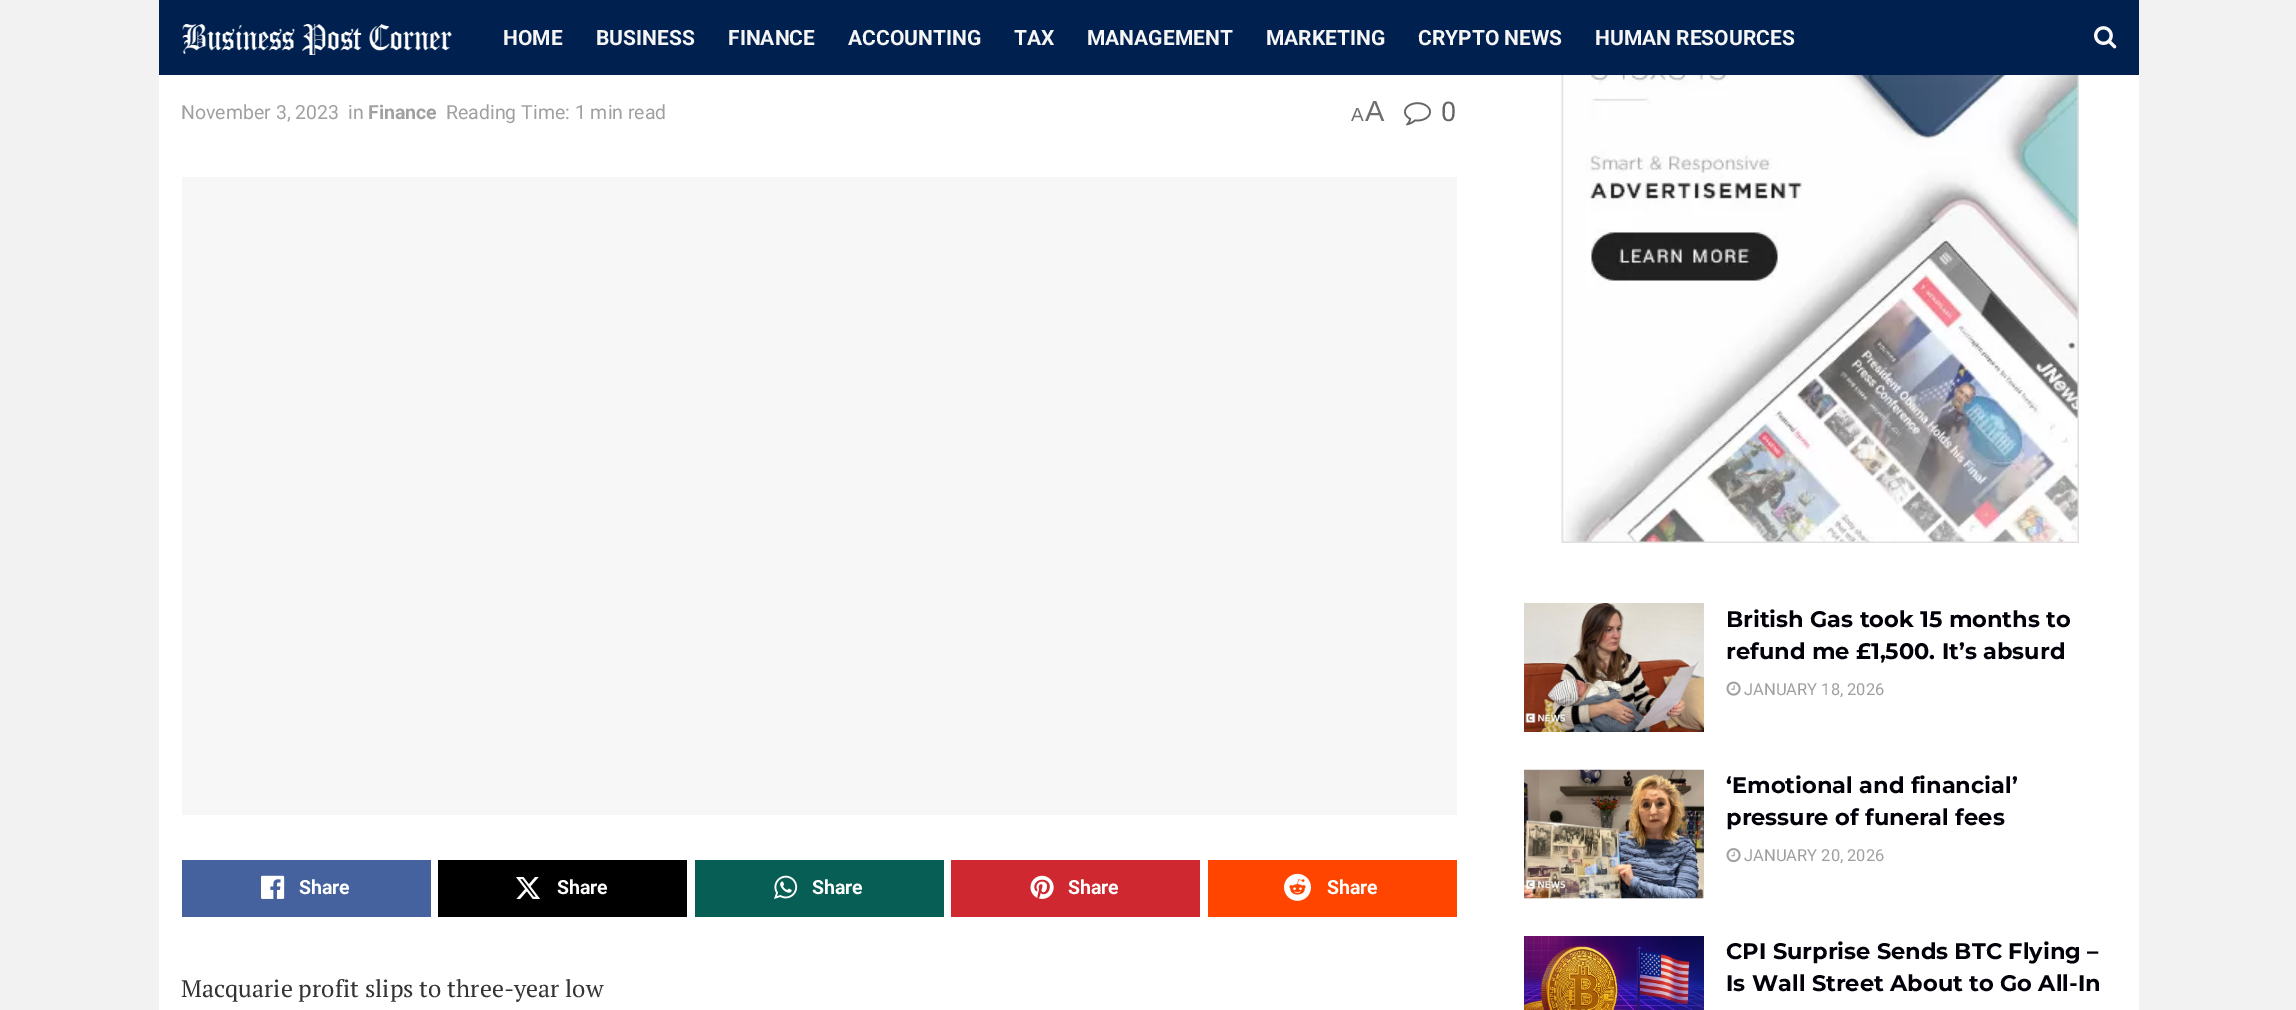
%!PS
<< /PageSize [2296 1010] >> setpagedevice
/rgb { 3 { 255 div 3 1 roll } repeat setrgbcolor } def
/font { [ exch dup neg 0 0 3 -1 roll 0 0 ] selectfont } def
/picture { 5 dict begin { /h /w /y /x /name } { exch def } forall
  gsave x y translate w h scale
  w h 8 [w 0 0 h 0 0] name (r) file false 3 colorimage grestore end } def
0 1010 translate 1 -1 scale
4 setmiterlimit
242 242 242 rgb
0 0 2296 1010 rectfill
0 33 79 rgb
159 0 1980 75 rectfill
(img/1.rgb) 182 24 270 31 picture
(img/2.rgb) 2094 26 23 23 picture
255 255 255 rgb
159 75 1980 935 rectfill
(img/3.rgb) 1404 102 27 24 picture
247 247 247 rgb
182 177 1275 638 rectfill
69 98 159 rgb
182 860 249 57 rectfill
(img/4.rgb) 261 875 24 24 picture
0 0 0 rgb
438 860 249 57 rectfill
(img/5.rgb) 516 877 25 22 picture
7 94 84 rgb
695 860 249 57 rectfill
(img/6.rgb) 774 875 24 24 picture
207 40 48 rgb
951 860 249 57 rectfill
(img/7.rgb) 1030 875 24 24 picture
255 69 0 rgb
1208 860 249 57 rectfill
(img/8.rgb) 1284 873 27 28 picture
(img/9.rgb) 1561 75 518 468 picture
(img/10.rgb) 1524 603 180 129 picture
(img/11.rgb) 1726 681 15 15 picture
247 247 247 rgb
1524 898 180 1 rectfill
(img/12.rgb) 1524 769 180 130 picture
(img/13.rgb) 1726 848 15 15 picture
(img/14.rgb) 1524 936 180 74 picture
/Roboto-Bold 21 font
245 245 245 rgb
[
  [(HOME) 503 45]
  [(BUSINESS) 596 45]
  [(FINANCE) 728 45]
  [(ACCOUNTING) 848 45]
  [(TAX) 1014 45]
  [(MANAGEMENT) 1087 45]
  [(MARKETING) 1266 45]
  [(CRYPTO NEWS) 1418 45]
  [(HUMAN RESOURCES) 1595 45]
] { aload pop moveto show } forall
/Roboto-Regular 19.5 font
160 160 160 rgb
181 119 moveto (November 3, 2023) show
348 119 moveto (in) show
/Roboto-Bold 19.5 font
368 119 moveto (Finance) show
/Roboto-Regular 19.5 font
446 119 moveto (Reading Time: 1 min read) show
/LiberationSans-Regular 19 font
112 112 112 rgb
1351 121 moveto (A) show
/LiberationSans-Regular 29 font
1365 121 moveto (A) show
/Roboto-Regular 27 font
102 102 102 rgb
1441 121 moveto (0) show
/Roboto-Bold 19.5 font
255 255 255 rgb
[
  [(Share) 299 894]
  [(Share) 557 894]
  [(Share) 812 894]
  [(Share) 1068 894]
  [(Share) 1327 894]
] { aload pop moveto show } forall
/PTSerif-Regular 24 font
51 51 51 rgb
181 997 moveto (Macquarie profit slips to three-year low) show
/Montserrat-Bold 22.5 font
2 1 10 rgb
1726 627 moveto (British Gas took 15 months to) show
1726 659 moveto (refund me £1,500. It’s absurd) show
/Roboto-Regular 16.5 font
160 160 160 rgb
1744 695 moveto (JANUARY 18, 2026) show
/Montserrat-Bold 22.5 font
2 1 10 rgb
1726 793 moveto (‘Emotional and financial’) show
1726 825 moveto (pressure of funeral fees) show
/Roboto-Regular 16.5 font
160 160 160 rgb
1744 861 moveto (JANUARY 20, 2026) show
/Montserrat-Bold 22.5 font
2 1 10 rgb
1726 959 moveto (CPI Surprise Sends BTC Flying –) show
1726 991 moveto (Is Wall Street About to Go All-In) show
showpage
